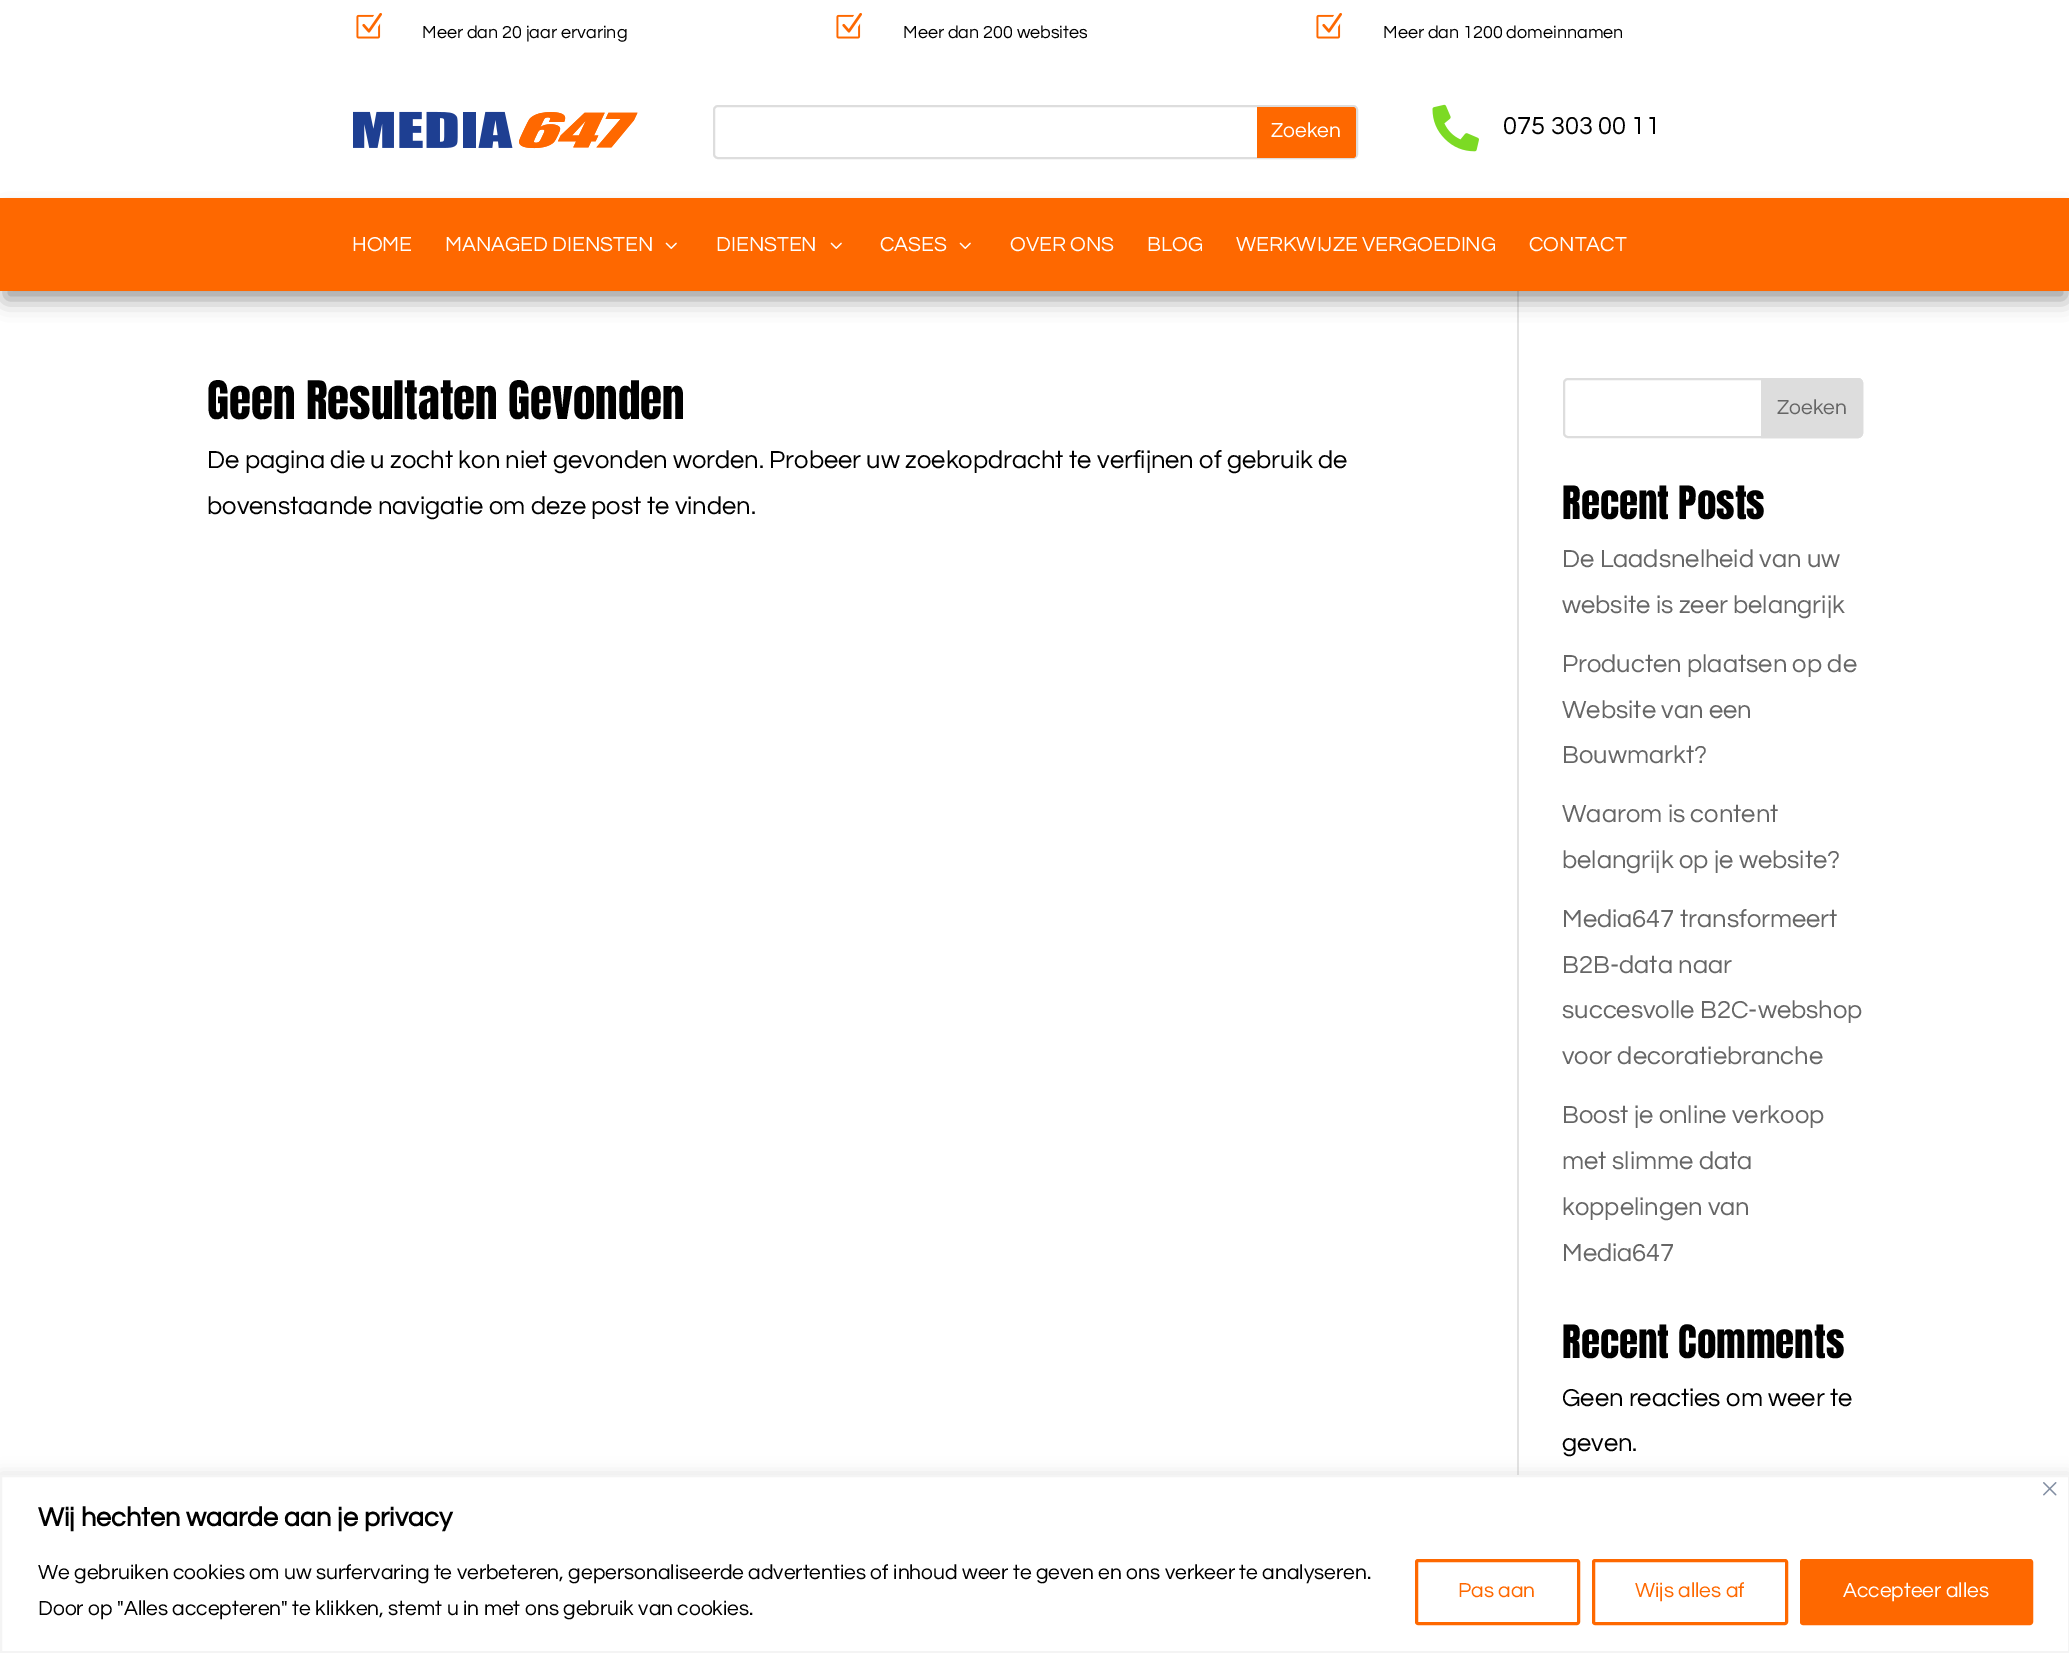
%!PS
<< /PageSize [2069 1653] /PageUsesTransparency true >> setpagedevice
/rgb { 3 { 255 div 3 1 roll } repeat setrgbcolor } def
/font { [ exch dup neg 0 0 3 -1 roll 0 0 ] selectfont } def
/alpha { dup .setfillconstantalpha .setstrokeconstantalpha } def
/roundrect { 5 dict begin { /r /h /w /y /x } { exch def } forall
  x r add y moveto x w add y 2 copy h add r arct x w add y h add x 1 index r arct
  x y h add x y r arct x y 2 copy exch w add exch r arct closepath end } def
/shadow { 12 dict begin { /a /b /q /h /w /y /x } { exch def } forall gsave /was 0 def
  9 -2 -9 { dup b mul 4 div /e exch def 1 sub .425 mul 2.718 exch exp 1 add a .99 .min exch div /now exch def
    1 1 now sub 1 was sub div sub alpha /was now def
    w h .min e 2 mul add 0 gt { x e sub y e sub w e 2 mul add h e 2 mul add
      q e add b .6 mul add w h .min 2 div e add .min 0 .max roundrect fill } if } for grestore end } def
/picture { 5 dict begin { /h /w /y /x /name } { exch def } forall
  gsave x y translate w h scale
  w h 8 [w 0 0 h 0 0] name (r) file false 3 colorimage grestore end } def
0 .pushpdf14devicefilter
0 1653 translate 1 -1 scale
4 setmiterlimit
255 255 255 rgb
0 0 2069 1653 rectfill
(img/1.rgb) 356 13 26 26 picture
(img/1.rgb) 836 13 26 26 picture
(img/1.rgb) 1316 13 26 26 picture
(img/2.rgb) 353 111 285 38 picture
221 221 221 rgb
2 setlinewidth
714 106 643 52 4 roundrect stroke
254 104 0 rgb
1257 107 moveto 1353 107 lineto 1354.5 107 1356 108.5 1356 110 curveto 1356 155 lineto 1356 156.5 1354.5 158 1353 158 curveto 1257 158 lineto closepath fill
(img/3.rgb) 1432 104 47 48 picture
226 226 226 rgb
1517 291 2 1184 rectfill
0 0 0 rgb
5 215 2061 84 0 10.5 0.41 shadow
254 104 0 rgb
0 198 2069 93 rectfill
(img/4.rgb) 665 242 12 7 picture
(img/4.rgb) 830 242 12 7 picture
(img/4.rgb) 959 242 12 7 picture
221 221 221 rgb
1564 379 298 58 4 roundrect stroke
1762 379 moveto 1858 379 lineto 1860 379 1862 381 1862 383 curveto 1862 433 lineto 1862 435 1860 437 1858 437 curveto 1762 437 lineto closepath gsave fill grestore
stroke
172 171 171 rgb
0 1473 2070 179 0 7.5 0.3 shadow
255 255 255 rgb
1 1476 moveto 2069 1476 lineto 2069 1652 lineto 1 1652 lineto closepath gsave fill grestore
244 244 244 rgb
stroke
(img/5.rgb) 2043 1482 14 14 picture
254 104 0 rgb
3 setlinewidth
1416.5 1560.5 162 63 1.5 roundrect stroke
1593.5 1560.5 193 63 1.5 roundrect stroke
1801.5 1560.5 230 63 1.5 roundrect gsave fill grestore
stroke
/Questrial-Regular 18 font
0 0 0 rgb
[
  [(Meer dan 20 jaar ervaring) 422 38]
  [(Meer dan 200 websites) 903 38]
  [(Meer dan 1200 domeinnamen) 1383 38]
] { aload pop moveto show } forall
/Questrial-Regular 21 font
255 255 255 rgb
1271 137 moveto (Zoeken) show
/Questrial-Regular 25.5 font
0 0 0 rgb
1503 134 moveto (075 303 00 11) show
/Questrial-Regular 21 font
255 255 255 rgb
[
  [(HOME) 352 251]
  [(MANAGED DIENSTEN) 445 251]
  [(DIENSTEN) 716 251]
  [(CASES) 880 251]
  [(OVER ONS) 1010 251]
  [(BLOG) 1147 251]
  [(WERKWIJZE VERGOEDING) 1236 251]
  [(CONTACT) 1529 251]
] { aload pop moveto show } forall
/Anton-Regular 45 font
0 0 0 rgb
207 419 moveto (Geen Resultaten Gevonden) show
/Questrial-Regular 25.5 font
207 468 moveto (De pagina die u zocht kon niet gevonden worden. Probeer uw zoekopdracht te verfijnen of gebruik de) show
207 514 moveto (bovenstaande navigatie om deze post te vinden.) show
/Questrial-Regular 21 font
102 102 102 rgb
1777 414 moveto (Zoeken) show
/Anton-Regular 39 font
0 0 0 rgb
1562 519 moveto (Recent Posts) show
/Questrial-Regular 25.5 font
102 102 102 rgb
[
  [(De Laadsnelheid van uw) 1562 567]
  [(website is zeer belangrijk) 1562 613]
  [(Producten plaatsen op de) 1562 672]
  [(Website van een) 1562 718]
  [(Bouwmarkt?) 1562 763]
  [(Waarom is content) 1562 822]
  [(belangrijk op je website?) 1562 868]
  [(Media647 transformeert) 1562 927]
  [(B2B-data naar) 1562 973]
  [(succesvolle B2C-webshop) 1562 1018]
  [(voor decoratiebranche) 1562 1064]
  [(Boost je online verkoop) 1562 1123]
  [(met slimme data) 1562 1169]
  [(koppelingen van) 1562 1215]
  [(Media647) 1562 1261]
] { aload pop moveto show } forall
/Anton-Regular 39 font
0 0 0 rgb
1562 1358 moveto (Recent Comments) show
/Questrial-Regular 25.5 font
1562 1406 moveto (Geen reacties om weer te) show
1562 1451 moveto (geven.) show
/Questrial-Bold 27 font
38 1526 moveto (Wij hechten waarde aan je privacy) show
/Questrial-Regular 21 font
38 1579 moveto (We gebruiken cookies om uw surfervaring te verbeteren, gepersonaliseerde advertenties of inhoud weer te geven en ons verkeer te analyseren.) show
38 1615 moveto (Door op "Alles accepteren" te klikken, stemt u in met ons gebruik van cookies.) show
254 104 0 rgb
1458 1597 moveto (Pas aan) show
1635 1597 moveto (Wijs alles af) show
255 255 255 rgb
1843 1597 moveto (Accepteer alles) show
.poppdf14devicefilter showpage
